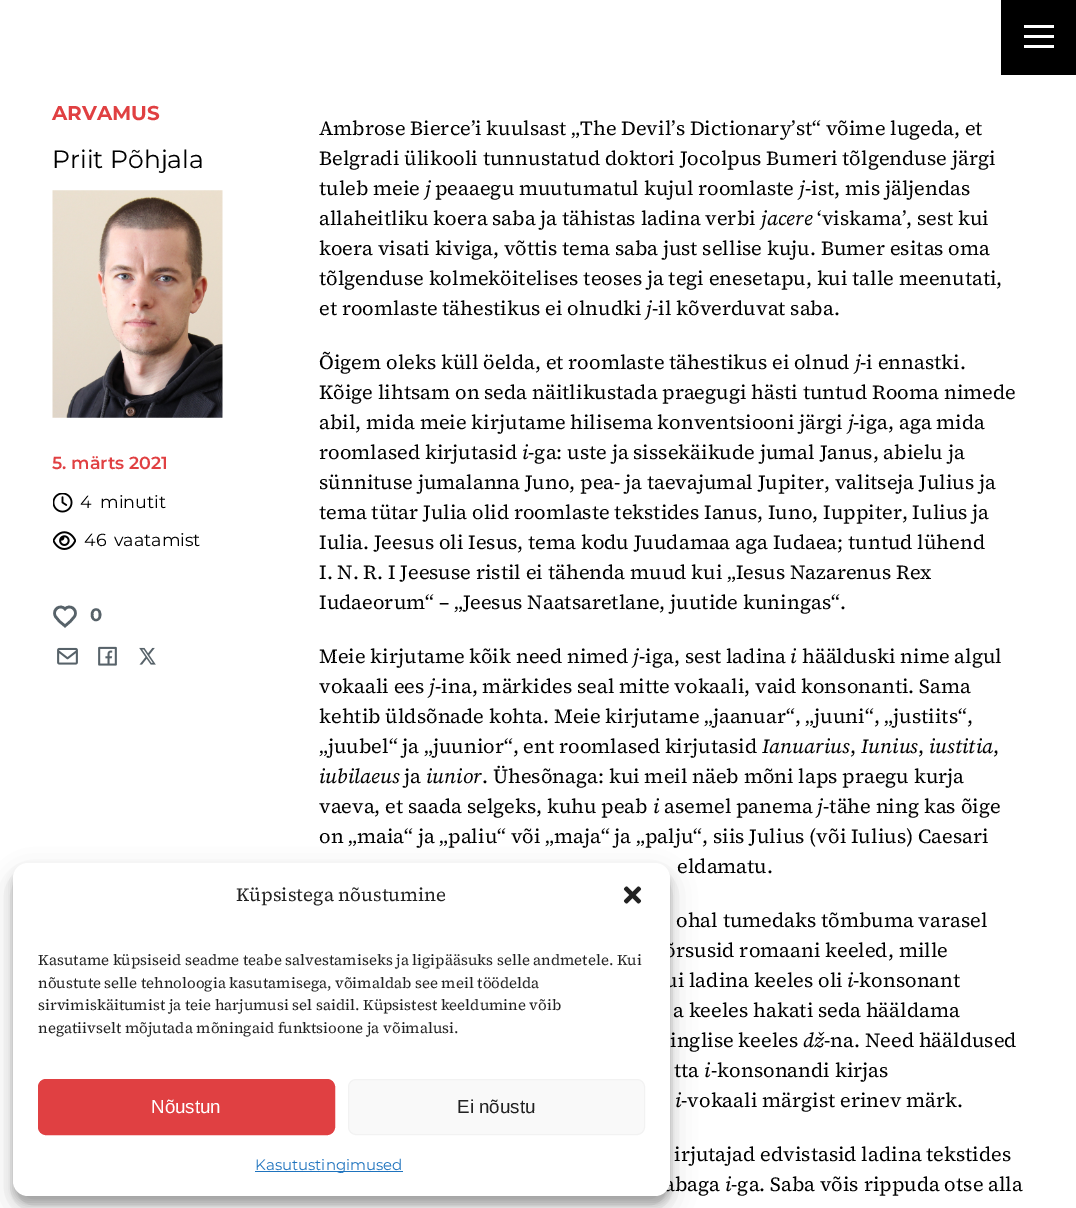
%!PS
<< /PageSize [1076 1208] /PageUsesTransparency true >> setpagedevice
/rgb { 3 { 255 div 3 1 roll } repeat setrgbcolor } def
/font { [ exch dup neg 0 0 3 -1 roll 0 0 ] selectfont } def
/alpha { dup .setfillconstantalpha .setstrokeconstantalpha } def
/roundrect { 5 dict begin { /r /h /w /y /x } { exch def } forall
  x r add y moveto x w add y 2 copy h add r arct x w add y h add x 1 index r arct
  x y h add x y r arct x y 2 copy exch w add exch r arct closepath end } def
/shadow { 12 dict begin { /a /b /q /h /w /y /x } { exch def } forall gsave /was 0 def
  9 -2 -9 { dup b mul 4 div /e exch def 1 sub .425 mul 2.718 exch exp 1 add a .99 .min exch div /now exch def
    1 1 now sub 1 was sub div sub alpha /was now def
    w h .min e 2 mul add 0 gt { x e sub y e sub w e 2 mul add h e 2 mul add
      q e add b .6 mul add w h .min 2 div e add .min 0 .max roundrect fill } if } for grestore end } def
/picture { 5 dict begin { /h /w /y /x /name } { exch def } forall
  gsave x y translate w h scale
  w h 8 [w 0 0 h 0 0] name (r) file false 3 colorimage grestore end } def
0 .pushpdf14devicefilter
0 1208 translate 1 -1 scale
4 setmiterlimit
255 255 255 rgb
0 0 1076 1208 rectfill
[
  [1001 0 75 75 0 0 0]
  [1024 25 30 3 255 255 255]
  [1024 35 30 3 255 255 255]
  [1024 45 30 3 255 255 255]
] { aload pop rgb rectfill } forall
(img/1.rgb) 52 190 171 228 picture
(img/2.rgb) 53 493 20 20 picture
(img/3.rgb) 53 531 23 19 picture
87 98 105 rgb
2.6 setlinewidth
65 626 moveto 61.5 623 57 620 55 615.5 curveto 52.5 609 60.5 604 65 609 curveto 69.5 604 77.5 609 75 615.5 curveto 73 619.5 68.5 623 65 626 curveto closepath stroke
(img/4.rgb) 57 647 21 18 picture
(img/5.rgb) 98 646 19 20 picture
(img/6.rgb) 139 647 17 18 picture
0 0 0 rgb
13 870 657 334 15 4 0.23 shadow
13 875 657 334 15 12.5 0.19 shadow
/Montserrat-Bold 20 font
224 64 66 rgb
52 120 moveto (ARVAMUS) show
/Montserrat-Regular 25 font
0 0 0 rgb
52 168 moveto (Priit Põhjala) show
/Montserrat-SemiBold 17.5 font
224 64 66 rgb
52 469 moveto (5. märts 2021) show
/Montserrat-Regular 17.5 font
0 0 0 rgb
[
  [(4) 80 508]
  [(minutit) 100 508]
  [(46) 84 546]
  [(vaatamist) 114 546]
] { aload pop moveto show } forall
/Montserrat-Bold 18 font
87 98 105 rgb
90 621 moveto (0) show
/SourceSerif4-Regular 20 font
0 0 0 rgb
[
  [(Ambrose Bierce’i kuulsast „The Devil’s Dictionary’st“ võime lugeda, et) 319 135]
  [(Belgradi ülikooli tunnustatud doktori Jocolpus Bumeri tõlgenduse järgi) 319 165]
  [(tuleb meie) 319 195]
] { aload pop moveto show } forall
/SourceSerif4-Italic 20 font
425 195 moveto (j) show
/SourceSerif4-Regular 20 font
435 195 moveto (peaaegu muutumatul kujul roomlaste) show
/SourceSerif4-Italic 20 font
799 195 moveto (j) show
/SourceSerif4-Regular 20 font
805 195 moveto (-ist, mis jäljendas) show
319 225 moveto (allaheitliku koera saba ja tähistas ladina verbi) show
/SourceSerif4-Italic 20 font
761 225 moveto (jacere) show
/SourceSerif4-Regular 20 font
[
  [(‘viskama’, sest kui) 817 225]
  [(koera visati kiviga, võttis tema saba just sellise kuju. Bumer esitas oma) 319 255]
  [(tõlgenduse kolmeköitelises teoses ja tegi enesetapu, kui talle meenutati,) 319 285]
  [(et roomlaste tähestikus ei olnudki) 319 315]
] { aload pop moveto show } forall
/SourceSerif4-Italic 20 font
646 315 moveto (j) show
/SourceSerif4-Regular 20 font
652 315 moveto (-il kõverduvat saba.) show
319 369 moveto (Õigem oleks küll öelda, et roomlaste tähestikus ei olnud) show
/SourceSerif4-Italic 20 font
855 369 moveto (j) show
/SourceSerif4-Regular 20 font
[
  [(-i ennastki.) 860 369]
  [(Kõige lihtsam on seda näitlikustada praegugi hästi tuntud Rooma nimede) 319 399]
  [(abil, mida meie kirjutame hilisema konventsiooni järgi) 319 429]
] { aload pop moveto show } forall
/SourceSerif4-Italic 20 font
848 429 moveto (j) show
/SourceSerif4-Regular 20 font
853 429 moveto (-iga, aga mida) show
319 459 moveto (roomlased kirjutasid) show
/SourceSerif4-Italic 20 font
522 459 moveto (i) show
/SourceSerif4-Regular 20 font
[
  [(-ga: uste ja sissekäikude jumal Janus, abielu ja) 528 459]
  [(sünnituse jumalanna Juno, pea- ja taevajumal Jupiter, valitseja Julius ja) 319 489]
  [(tema tütar Julia olid roomlaste tekstides Ianus, Iuno, Iuppiter, Iulius ja) 319 519]
  [(Iulia. Jeesus oli Iesus, tema kodu Juudamaa aga Iudaea; tuntud lühend) 319 549]
  [(I. N. R. I Jeesuse ristil ei tähenda muud kui „Iesus Nazarenus Rex) 319 579]
  [(Iudaeorum“ – „Jeesus Naatsaretlane, juutide kuningas“.) 319 609]
  [(Meie kirjutame kõik need nimed) 319 663]
] { aload pop moveto show } forall
/SourceSerif4-Italic 20 font
633 663 moveto (j) show
/SourceSerif4-Regular 20 font
639 663 moveto (-iga, sest ladina) show
/SourceSerif4-Italic 20 font
790 663 moveto (i) show
/SourceSerif4-Regular 20 font
802 663 moveto (häälduski nime algul) show
319 693 moveto (vokaali ees) show
/SourceSerif4-Italic 20 font
429 693 moveto (j) show
/SourceSerif4-Regular 20 font
[
  [(-ina, märkides seal mitte vokaali, vaid konsonanti. Sama) 435 693]
  [(kehtib üldsõnade kohta. Meie kirjutame „jaanuar“, „juuni“, „justiits“,) 319 723]
  [(„juubel“ ja „juunior“, ent roomlased kirjutasid) 319 753]
] { aload pop moveto show } forall
/SourceSerif4-Italic 20 font
762 753 moveto (Ianuarius) show
/SourceSerif4-Regular 20 font
850 753 moveto (,) show
/SourceSerif4-Italic 20 font
861 753 moveto (Iunius) show
/SourceSerif4-Regular 20 font
918 753 moveto (,) show
/SourceSerif4-Italic 20 font
929 753 moveto (iustitia) show
/SourceSerif4-Regular 20 font
993 753 moveto (,) show
/SourceSerif4-Italic 20 font
319 783 moveto (iubilaeus) show
/SourceSerif4-Regular 20 font
404 783 moveto (ja) show
/SourceSerif4-Italic 20 font
426 783 moveto (iunior) show
/SourceSerif4-Regular 20 font
482 783 moveto (. Ühesõnaga: kui meil näeb mõni laps praegu kurja) show
319 813 moveto (vaeva, et saada selgeks, kuhu peab) show
/SourceSerif4-Italic 20 font
653 813 moveto (i) show
/SourceSerif4-Regular 20 font
664 813 moveto (asemel panema) show
/SourceSerif4-Italic 20 font
817 813 moveto (j) show
/SourceSerif4-Regular 20 font
[
  [(-tähe ning kas õige) 823 813]
  [(on „maia“ ja „paliu“ või „maja“ ja „palju“, siis Julius \(või Iulius\) Caesari) 319 843]
  [(eldamatu.) 677 873]
  [(ohal tumedaks tõmbuma varasel) 676 927]
  [(õrsusid romaani keeled, mille) 664 957]
  [(ui ladina keeles oli) 665 987]
] { aload pop moveto show } forall
/SourceSerif4-Italic 20 font
847 987 moveto (i) show
/SourceSerif4-Regular 20 font
[
  [(-konsonant) 853 987]
  [(a keeles hakati seda hääldama) 673 1017]
  [(inglise keeles) 670 1047]
] { aload pop moveto show } forall
/SourceSerif4-Italic 20 font
803 1047 moveto (dž) show
/SourceSerif4-Regular 20 font
824 1047 moveto (-na. Need hääldused) show
674 1077 moveto (tta) show
/SourceSerif4-Italic 20 font
704 1077 moveto (i) show
/SourceSerif4-Regular 20 font
711 1077 moveto (-konsonandi kirjas) show
/SourceSerif4-Italic 20 font
675 1107 moveto (i) show
/SourceSerif4-Regular 20 font
[
  [(-vokaali märgist erinev märk.) 681 1107]
  [(irjutajad edvistasid ladina tekstides) 674 1161]
  [(abaga) 664 1191]
] { aload pop moveto show } forall
/SourceSerif4-Italic 20 font
725 1191 moveto (i) show
/SourceSerif4-Regular 20 font
731 1191 moveto (-ga. Saba võis rippuda otse alla) show
255 255 255 rgb
13 863 657 333 15 roundrect fill
/SourceSerif4-Regular 18.75 font
34 34 34 rgb
236 901 moveto (Küpsistega nõustumine) show
(img/7.rgb) 623 886 19 18 picture
/SourceSerif4-Regular 15 font
[
  [(Kasutame küpsiseid seadme teabe salvestamiseks ja ligipääsuks selle andmetele. Kui) 38 965]
  [(nõustute selle tehnoloogia kasutamisega, võimaldab see meil töödelda) 38 988]
  [(sirvimiskäitumist ja teie harjumusi sel saidil. Küpsistest keeldumine võib) 38 1010]
  [(negatiivselt mõjutada mõningaid funktsioone ja võimalusi.) 38 1033]
] { aload pop moveto show } forall
224 64 66 rgb
38.5 1079.5 296 55 7.5 roundrect gsave fill grestore
1 setlinewidth
stroke
/LiberationSans-Regular 18.75 font
255 255 255 rgb
151 1113 moveto (Nõustun) show
249 249 249 rgb
348.5 1079.5 296 55 7.5 roundrect gsave fill grestore
242 242 242 rgb
stroke
34 34 34 rgb
457 1113 moveto (Ei nõustu) show
30 115 190 rgb
255 1171 148 1 rectfill
/Montserrat-Regular 15 font
255 1170 moveto (Kasutustingimused) show
.poppdf14devicefilter showpage
